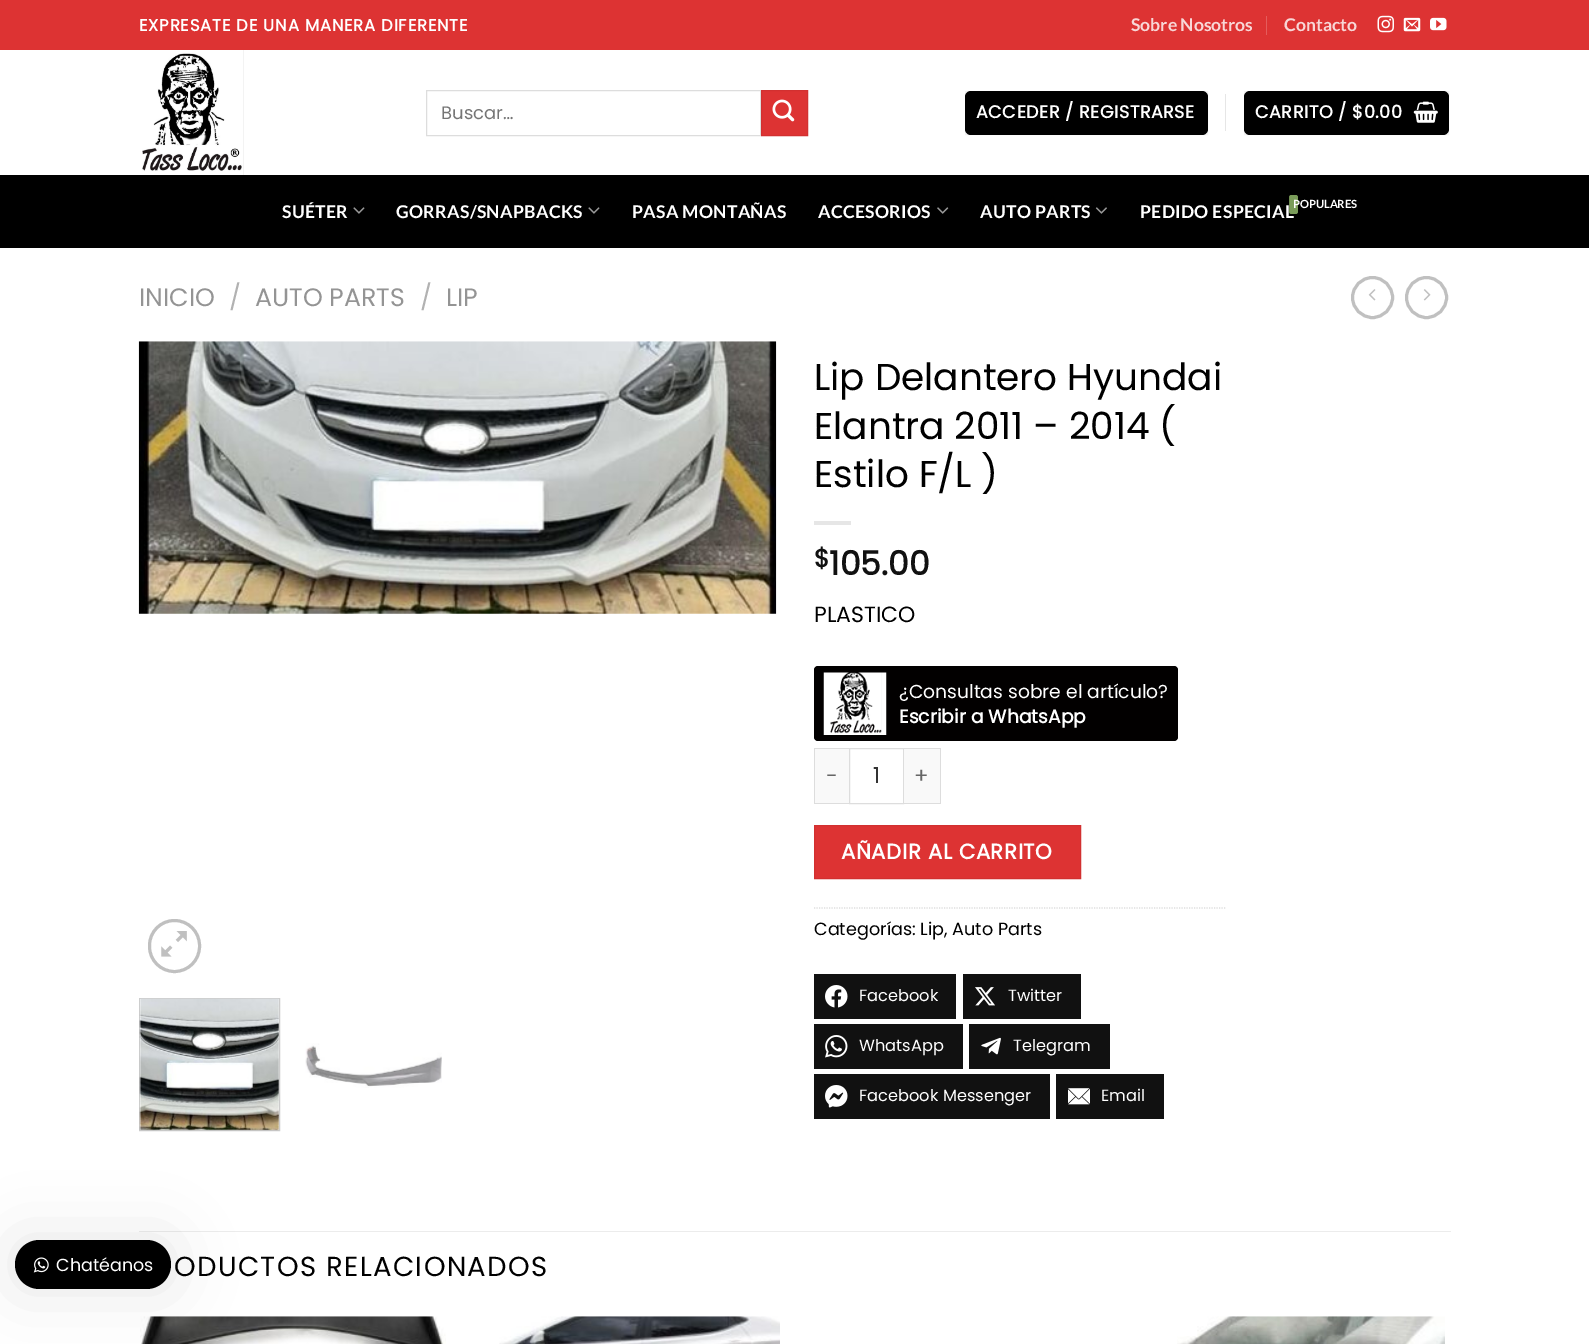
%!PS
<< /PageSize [1589 1344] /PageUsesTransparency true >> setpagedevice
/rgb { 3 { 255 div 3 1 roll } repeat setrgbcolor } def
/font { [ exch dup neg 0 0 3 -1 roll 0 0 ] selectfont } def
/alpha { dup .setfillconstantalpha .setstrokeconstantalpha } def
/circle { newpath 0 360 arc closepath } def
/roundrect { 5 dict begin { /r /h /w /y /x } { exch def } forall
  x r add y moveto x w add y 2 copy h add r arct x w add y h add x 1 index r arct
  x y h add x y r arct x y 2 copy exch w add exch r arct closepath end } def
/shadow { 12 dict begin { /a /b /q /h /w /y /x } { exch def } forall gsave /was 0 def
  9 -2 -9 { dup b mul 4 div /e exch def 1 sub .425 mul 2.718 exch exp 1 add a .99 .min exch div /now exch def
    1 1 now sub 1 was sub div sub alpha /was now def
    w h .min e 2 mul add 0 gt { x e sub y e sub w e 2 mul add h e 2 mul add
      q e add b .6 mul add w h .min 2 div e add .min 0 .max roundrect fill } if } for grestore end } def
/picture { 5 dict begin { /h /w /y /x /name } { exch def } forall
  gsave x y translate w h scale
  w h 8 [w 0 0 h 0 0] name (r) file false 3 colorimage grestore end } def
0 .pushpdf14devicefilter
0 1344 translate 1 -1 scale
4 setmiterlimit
255 255 255 rgb
0 0 1589 1344 rectfill
236 236 236 rgb
139 1231 1312 1 rectfill
(img/24.rgb) 140 1316 306 28 picture
0 0 0 rgb
15 1240 156 49 24.5 31 0.1 shadow
15 1240 156 49 24.5 roundrect fill
(img/1.rgb) 33 1257 16 16 picture
221 51 51 rgb
0 0 1589 50 rectfill
228 92 92 rgb
1266 16 1 19 rectfill
(img/2.rgb) 1377 15 17 18 picture
(img/3.rgb) 1403 17 18 15 picture
(img/4.rgb) 1430 17 17 14 picture
(img/5.rgb) 142 50 102 125 picture
221 221 221 rgb
426.5 90.5 334 45 rectstroke
221 51 51 rgb
761.5 90.5 moveto 807.5 90.5 lineto 807.5 135.5 lineto 761.5 135.5 lineto closepath gsave fill grestore
210 48 48 rgb
stroke
(img/6.rgb) 772 99 23 23 picture
0 0 0 rgb
965 91 243 44 6 roundrect fill
0.05 alpha
965.5 91.5 242 43 rectstroke
1 alpha
230 230 230 rgb
1225 94 1 37 rectfill
0 0 0 rgb
1244 91 205 44 6 roundrect fill
0.05 alpha
1244.5 91.5 204 43 rectstroke
1 alpha
(img/7.rgb) 1413 101 25 22 picture
0 175 1589 73 rectfill
(img/8.rgb) 353 207 12 7 picture
(img/8.rgb) 588 207 12 7 picture
(img/9.rgb) 937 207 12 7 picture
(img/10.rgb) 1095 207 12 7 picture
192 192 192 rgb
3 setlinewidth
1372.5 297.5 20 circle stroke
(img/11.rgb) 1368 289 8 12 picture
1426.5 297.5 20 circle stroke
(img/12.rgb) 1423 289 8 12 picture
(img/13.rgb) 138 341 639 273 picture
149.5 920.5 50 51 25 roundrect stroke
(img/14.rgb) 161 931 26 26 picture
204 204 204 rgb
1 setlinewidth
139.5 998.5 140 132 rectstroke
(img/15.rgb) 139 998 140 133 picture
(img/16.rgb) 305 1043 137 45 picture
230 230 230 rgb
814 521 37 4 rectfill
2 0 0 rgb
814 666 364 75 4 roundrect fill
(img/17.rgb) 823 672 64 63 picture
[
  [815 749 34 54 249 249 249]
  [814 748 35 1 221 221 221]
  [814 803 35 1 221 221 221]
  [814 748 1 56 221 221 221]
] { aload pop rgb rectfill } forall
849.5 748.5 54 55 rectstroke
[
  [904 749 36 54 249 249 249]
  [904 748 37 1 221 221 221]
  [940 748 1 56 221 221 221]
  [904 803 37 1 221 221 221]
] { aload pop rgb rectfill } forall
221 51 51 rgb
814.5 825.5 moveto 1080.5 825.5 lineto 1080.5 878.5 lineto 814.5 878.5 lineto closepath gsave fill grestore
210 48 48 rgb
stroke
221 221 221 rgb
1.2 setlinewidth
[1.25 1.25] 0 setdash
814 908 moveto 1226 908 lineto stroke
17 17 17 rgb
814 974 142 45 rectfill
(img/18.rgb) 825 985 23 23 picture
963 974 118 45 rectfill
(img/19.rgb) 975 987 20 19 picture
814 1024 149 45 rectfill
(img/20.rgb) 825 1035 23 23 picture
969 1024 141 45 rectfill
(img/21.rgb) 981 1037 20 18 picture
814 1074 236 45 rectfill
(img/22.rgb) 825 1085 23 23 picture
1056 1074 108 45 rectfill
(img/23.rgb) 1068 1088 22 17 picture
(img/25.rgb) 499 1316 281 28 picture
(img/26.rgb) 1177 1316 268 28 picture
/Poppins-Regular 17.5 font
255 255 255 rgb
56 1271 moveto (Chatéanos) show
/Poppins-Bold 16.5 font
139 31 moveto 0.8 0 (EXPRESATE DE UNA MANERA DIFERENTE) ashow
/Lato-Bold 17.6 font
248 214 214 rgb
1131 31 moveto (Sobre Nosotros) show
1284 31 moveto (Contacto) show
/Poppins-Regular 18 font
117 117 117 rgb
441 119 moveto (Buscar…) show
/Poppins-Bold 17.6 font
255 255 255 rgb
976 118 moveto 0.5 0 (ACCEDER / REGISTRARSE) ashow
1255 118 moveto 0.5 0 (CARRITO / $0.00) ashow
/Lato-Bold 17.6 font
282 218 moveto 0.3 0 (SUÉTER) ashow
396 218 moveto 0.3 0 (GORRAS/SNAPBACKS) ashow
632 218 moveto 0.3 0 (PASA MONTAÑAS) ashow
818 218 moveto 0.3 0 (ACCESORIOS) ashow
980 218 moveto 0.3 0 (AUTO PARTS) ashow
1140 218 moveto 0.3 0 (PEDIDO ESPECIAL) ashow
122 156 89 rgb
1289 195 9 19 2.5 roundrect fill
/Lato-Bold 11.25 font
255 255 255 rgb
1293 208 moveto -0.1 0 (POPULARES) ashow
0.1 alpha
0 0 0 rgb
1289 196 1 17 rectfill
/Poppins-Regular 25.25 font
1 alpha
148 148 148 rgb
139 306 moveto (INICIO) show
178 178 178 rgb
229 306 moveto (/) show
148 148 148 rgb
255 306 moveto (AUTO PARTS) show
178 178 178 rgb
420 306 moveto (/) show
148 148 148 rgb
446 306 moveto (LIP) show
/Poppins-Regular 37.4 font
0 0 0 rgb
[
  [(Lip Delantero Hyundai) 814 390]
  [(Elantra 2011 – 2014 \() 814 439]
  [(Estilo F/L \)) 814 487]
] { aload pop moveto show } forall
/Poppins-Bold 25 font
17 17 17 rgb
814 567 moveto ($) show
/Poppins-Bold 33 font
829 575 moveto (105.00) show
/Poppins-Regular 22 font
0 0 0 rgb
814 622 moveto (PLASTICO) show
/Poppins-Regular 18.75 font
255 255 255 rgb
899 698 moveto (¿Consultas sobre el artículo?) show
/Poppins-Bold 18.75 font
899 723 moveto (Escribir a WhatsApp) show
/Poppins-Regular 21.25 font
102 102 102 rgb
826 783 moveto 0.6 0 (-) ashow
/Poppins-Regular 22 font
51 51 51 rgb
873 783 moveto (1) show
/Poppins-Regular 21.25 font
102 102 102 rgb
914 783 moveto 0.6 0 (+) ashow
/Poppins-Bold 21.25 font
255 255 255 rgb
841 859 moveto 0.6 0 (AÑADIR AL CARRITO) ashow
/Poppins-Regular 17.6 font
0 0 0 rgb
814 935 moveto (Categorías: Lip, Auto Parts) show
/Poppins-Regular 16.25 font
255 255 255 rgb
[
  [(Facebook) 859 1001]
  [(Twitter) 1008 1001]
  [(WhatsApp) 859 1051]
  [(Telegram) 1013 1051]
  [(Facebook Messenger) 859 1101]
  [(Email) 1101 1101]
] { aload pop moveto show } forall
/Poppins-Regular 27.5 font
0 0 0 rgb
174 1276 moveto 1.4 0 (ODUCTOS RELACIONADOS) ashow
.poppdf14devicefilter showpage
